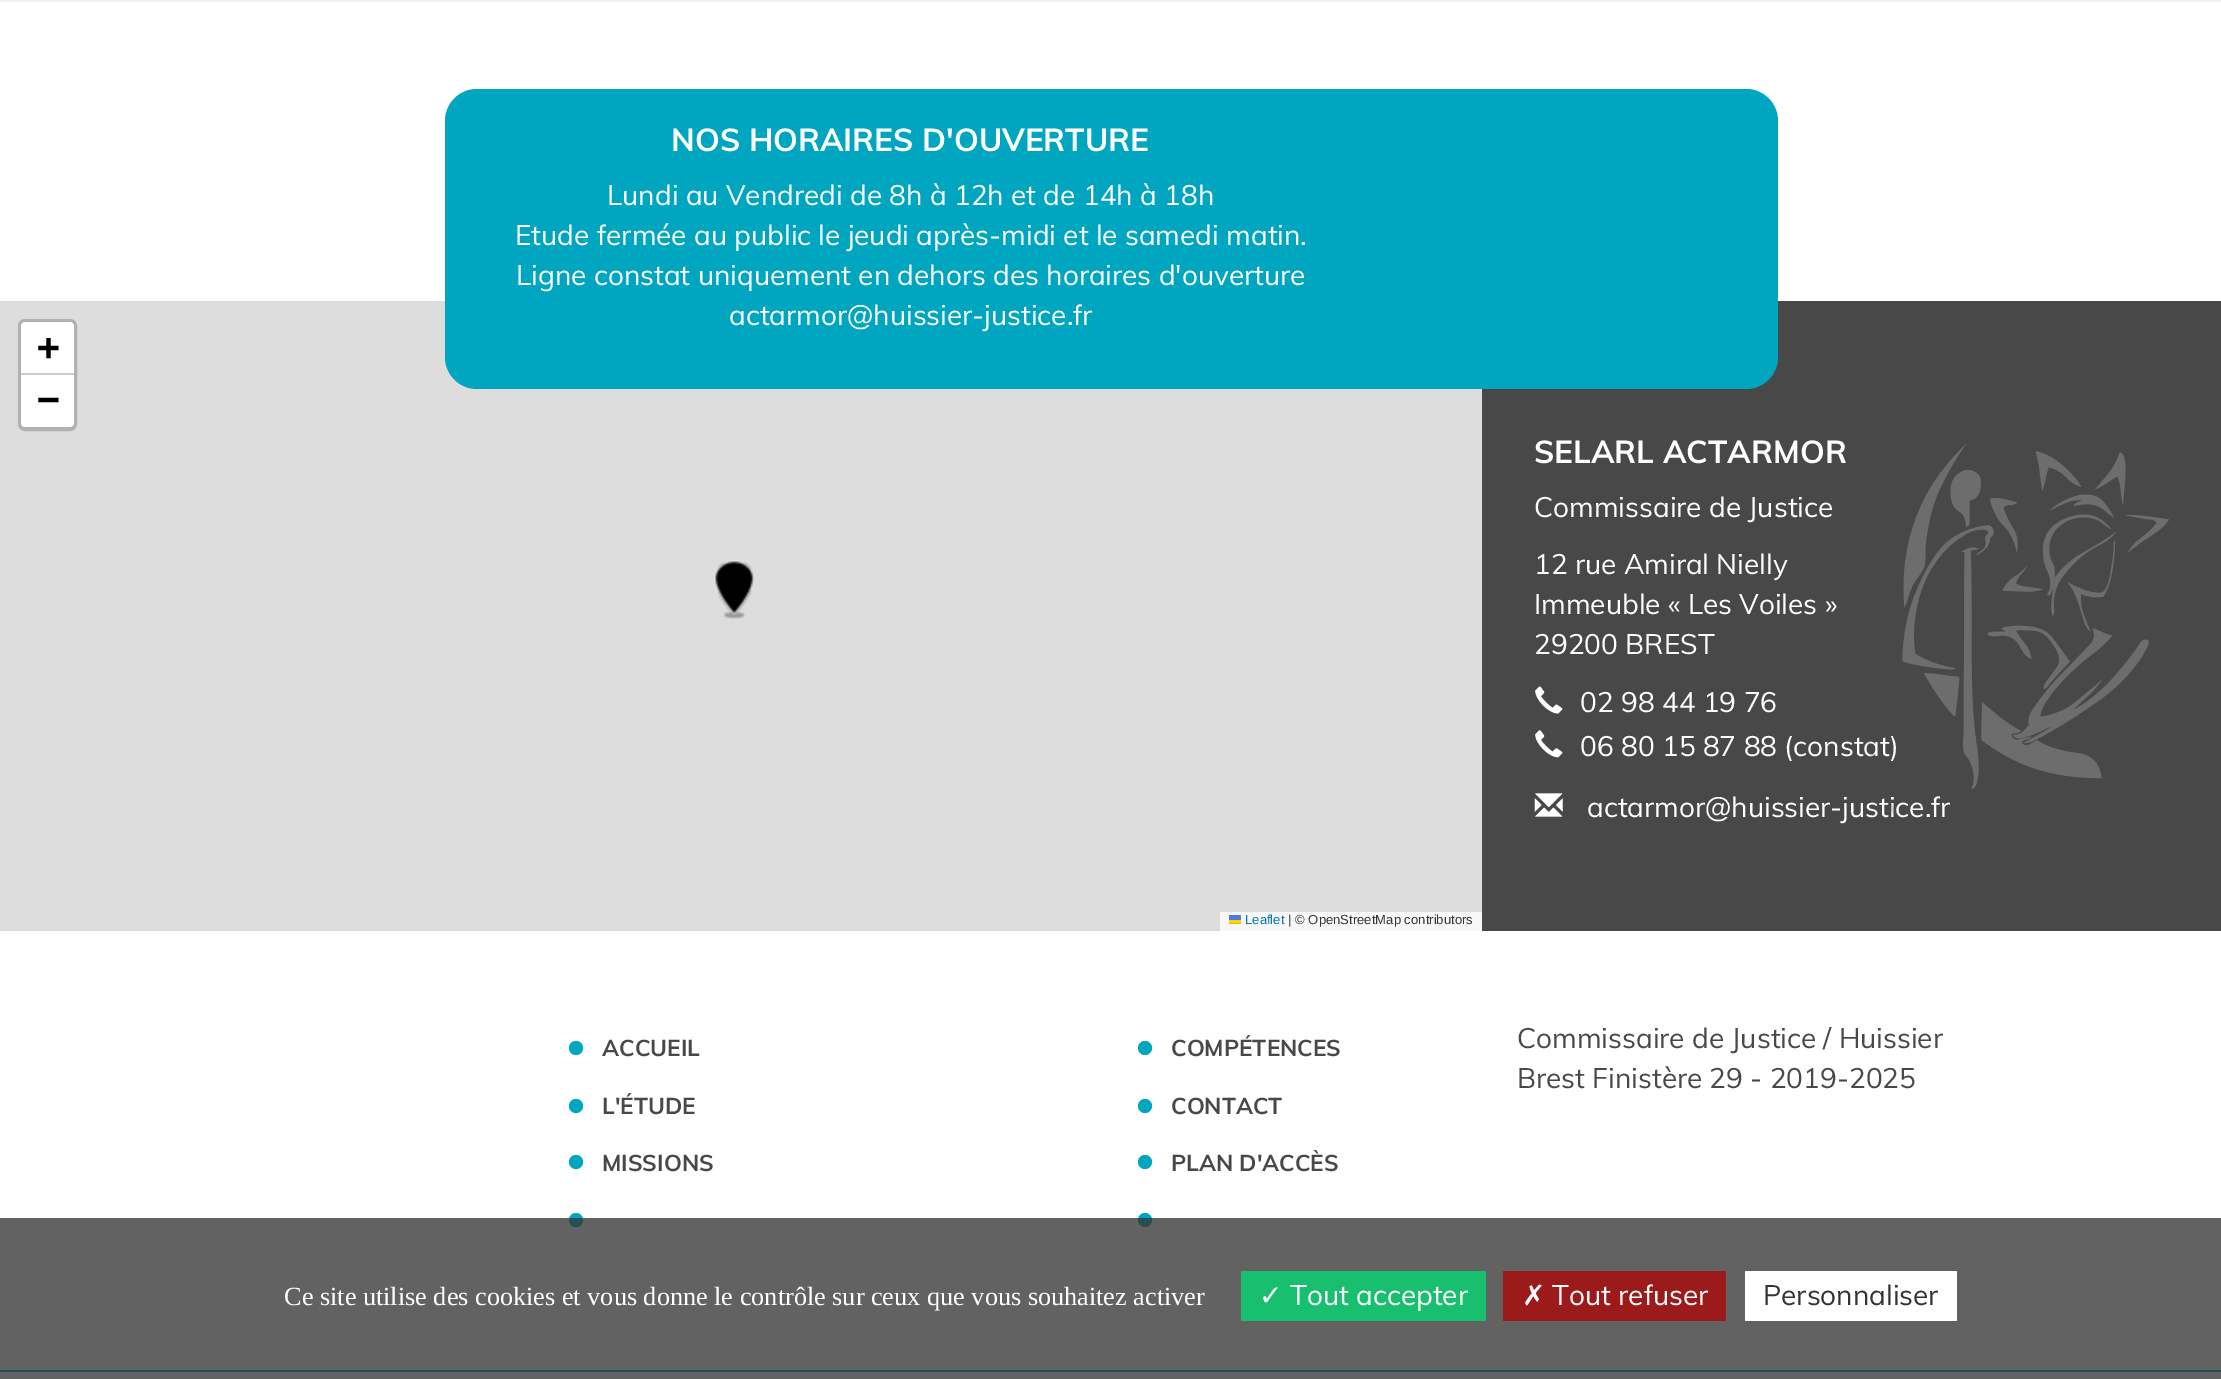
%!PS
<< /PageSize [2221 1379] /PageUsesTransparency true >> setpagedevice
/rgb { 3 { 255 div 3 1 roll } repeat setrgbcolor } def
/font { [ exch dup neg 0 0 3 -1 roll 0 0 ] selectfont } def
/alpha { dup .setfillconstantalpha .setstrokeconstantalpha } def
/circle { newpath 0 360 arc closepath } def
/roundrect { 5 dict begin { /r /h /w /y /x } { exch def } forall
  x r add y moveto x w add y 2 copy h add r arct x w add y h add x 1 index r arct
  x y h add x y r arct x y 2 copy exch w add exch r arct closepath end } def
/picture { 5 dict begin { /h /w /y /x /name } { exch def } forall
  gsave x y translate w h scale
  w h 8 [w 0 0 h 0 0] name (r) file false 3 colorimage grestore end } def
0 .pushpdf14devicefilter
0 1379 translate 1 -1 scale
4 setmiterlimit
255 255 255 rgb
0 0 2221 1379 rectfill
[
  [0 0 2221 2 242 242 242]
  [0 301 1482 630 221 221 221]
  [1482 301 739 630 72 72 72]
] { aload pop rgb rectfill } forall
0 166 191 rgb
445 89 1333 300 32 roundrect fill
177 177 177 rgb
4 setlinewidth
20 321 55 108 5 roundrect stroke
255 255 255 rgb
25 322 moveto 70 322 lineto 72 322 74 324 74 326 curveto 74 375 lineto 21 375 lineto 21 326 lineto 21 324 23 322 25 322 curveto closepath fill
204 204 204 rgb
21 373 53 2 rectfill
255 255 255 rgb
21 375 moveto 74 375 lineto 74 423 lineto 74 425 72 427 70 427 curveto 25 427 lineto 23 427 21 425 21 423 curveto closepath fill
[
  [1220 912 262 19 248 248 248]
  [1229 915 12 5 76 123 225]
  [1229 920 12 3 255 213 0]
  [1229 923 12 1 224 188 0]
] { aload pop rgb rectfill } forall
(img/1.rgb) 714 560 40 60 picture
(img/3.rgb) 1535 686 28 28 picture
(img/4.rgb) 1535 730 28 28 picture
(img/5.rgb) 1534 793 29 24 picture
0 166 191 rgb
576 1048 7 circle fill
576 1106 7 circle fill
576 1162 7 circle fill
576 1220 7 circle fill
1145 1048 7 circle fill
1145 1106 7 circle fill
1145 1162 7 circle fill
1145 1220 7 circle fill
[
  [0 1370 2221 2 0 166 191]
] { aload pop rgb rectfill } forall
0.77 alpha
[
  [0 1218 2221 161 51 51 51]
] { aload pop rgb rectfill } forall
1 alpha
[
  [1241 1271 245 50 24 191 110]
  [1503 1271 223 50 156 26 26]
  [1745 1271 212 50 255 255 255]
] { aload pop rgb rectfill } forall
/Muli-Bold 31.5 font
671 151 moveto (NOS HORAIRES D'OUVERTURE) show
/Muli-Regular 28 font
[
  [(Lundi au Vendredi de 8h à 12h et de 14h à 18h) 607 205]
  [(Etude fermée au public le jeudi après-midi et le samedi matin.) 515 245]
  [(Ligne constat uniquement en dehors des horaires d'ouverture) 516 285]
  [(actarmor@huissier-justice.fr) 729 325]
] { aload pop moveto show } forall
/DejaVuSansMono-Bold 38 font
0 0 0 rgb
37 360 moveto (+) show
37 412 moveto (−) show
/LiberationSans-Regular 13.1 font
0 120 168 rgb
1245 924 moveto (Leaflet) show
51 51 51 rgb
1288 924 moveto (| © OpenStreetMap contributors) show
/Muli-Bold 31.5 font
255 255 255 rgb
1534 463 moveto (SELARL ACTARMOR) show
/Muli-Regular 28 font
[
  [(Commissaire de Justice) 1534 517]
  [(12 rue Amiral Nielly) 1534 574]
  [(Immeuble « Les Voiles ») 1534 614]
  [(29200 BREST) 1534 654]
  [(02 98 44 19 76) 1580 712]
  [(06 80 15 87 88 \(constat\)) 1580 756]
  [(actarmor@huissier-justice.fr) 1587 817]
] { aload pop moveto show } forall
0.2 alpha
72 72 72 rgb
3.5 setlinewidth
2037 303 moveto 2138.5 303 2221 443 2221 616 curveto 2221 789 2138.5 929 2037 929 curveto 1935.5 929 1853 789 1853 616 curveto 1853 443 1935.5 303 2037 303 curveto closepath stroke
1 alpha
(img/2.rgb) 1902 443 267 346 picture
/Muli-Bold 22.75 font
[
  [(ACCUEIL) 602 1056]
  [(L'ÉTUDE) 602 1114]
  [(MISSIONS) 602 1171]
  [(COMPÉTENCES) 1171 1056]
  [(CONTACT) 1171 1114]
  [(PLAN D'ACCÈS) 1171 1171]
] { aload pop moveto show } forall
/Muli-Regular 28 font
1517 1048 moveto (Commissaire de Justice / Huissier) show
1517 1088 moveto (Brest Finistère 29 - 2019-2025) show
/LiberationSerif-Regular 26.25 font
255 255 255 rgb
284 1305 moveto (Ce site utilise des cookies et vous donne le contrôle sur ceux que vous souhaitez activer) show
/DejaVuSans-Regular 28 font
1259 1305 moveto (✓) show
/Muli-Regular 28 font
1290 1305 moveto (Tout accepter) show
/DejaVuSans-Regular 28 font
1522 1305 moveto (✗) show
/Muli-Regular 28 font
1552 1305 moveto (Tout refuser) show
51 51 51 rgb
1763 1305 moveto (Personnaliser) show
.poppdf14devicefilter showpage
